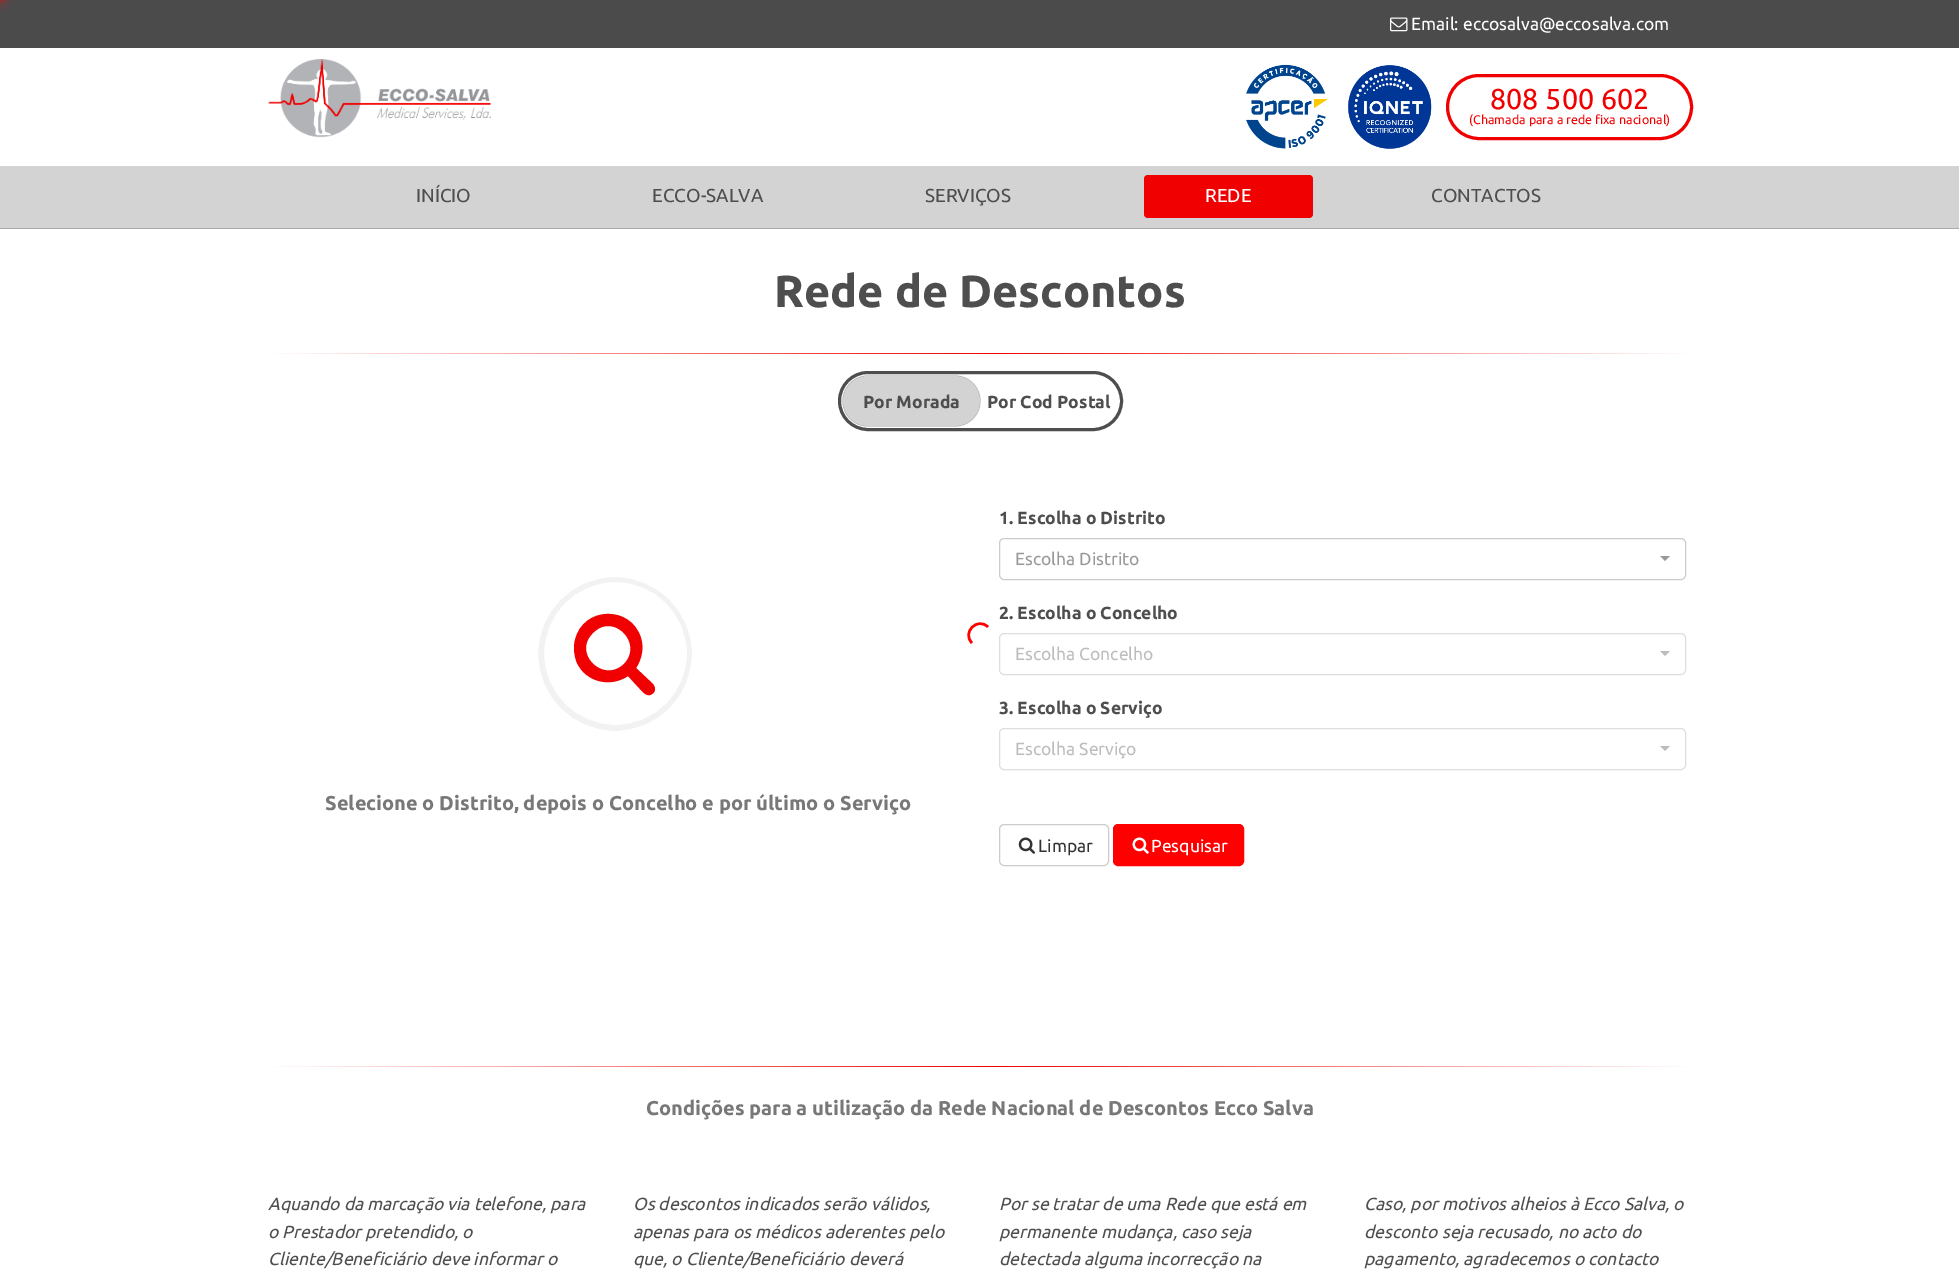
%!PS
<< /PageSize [1959 1269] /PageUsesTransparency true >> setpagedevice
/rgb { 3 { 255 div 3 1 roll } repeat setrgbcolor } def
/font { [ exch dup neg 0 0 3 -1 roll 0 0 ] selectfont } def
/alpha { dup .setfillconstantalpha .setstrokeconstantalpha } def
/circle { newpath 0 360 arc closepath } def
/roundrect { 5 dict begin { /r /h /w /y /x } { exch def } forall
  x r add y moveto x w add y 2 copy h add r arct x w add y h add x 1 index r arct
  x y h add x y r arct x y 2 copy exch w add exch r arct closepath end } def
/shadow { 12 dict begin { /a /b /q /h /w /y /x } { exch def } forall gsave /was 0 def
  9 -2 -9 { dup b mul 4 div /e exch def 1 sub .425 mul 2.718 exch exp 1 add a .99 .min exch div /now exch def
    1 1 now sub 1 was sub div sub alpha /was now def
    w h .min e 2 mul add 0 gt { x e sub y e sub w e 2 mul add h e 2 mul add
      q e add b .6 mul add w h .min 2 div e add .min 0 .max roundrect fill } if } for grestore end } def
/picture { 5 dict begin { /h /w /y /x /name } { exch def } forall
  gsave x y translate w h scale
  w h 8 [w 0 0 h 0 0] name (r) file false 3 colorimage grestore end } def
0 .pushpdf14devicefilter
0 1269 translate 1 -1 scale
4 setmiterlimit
255 255 255 rgb
0 0 1959 1269 rectfill
75 75 75 rgb
0 0 1959 48 rectfill
255 0 0 rgb
-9 -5 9 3 0 3 1 shadow
-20 -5 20 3 0 6.5 1 shadow
2.5 setlinewidth
972 643 moveto 961.5 632.5 977.5 616.5 988 627 curveto stroke
(img/1.rgb) 1390 17 18 15 picture
(img/2.rgb) 268 59 223 79 picture
(img/3.rgb) 1246 64 186 85 picture
240 0 0 rgb
3 setlinewidth
1447.5 75.5 244 63 31.5 roundrect stroke
211 211 211 rgb
0 166 1959 62 rectfill
169 169 169 rgb
0 228 1959 1 rectfill
240 0 0 rgb
1144 175 169 43 4 roundrect fill
gsave 268 353 moveto 1693 353 lineto 1693 354 lineto 268 354 lineto closepath clip newpath
<< /ShadingType 2 /ColorSpace /DeviceRGB /Coords [268 353 1693 353] /Extend [true true] /Function << /FunctionType 3 /Domain [0 1] /Functions [<< /FunctionType 2 /Domain [0 1] /C0 [1 1 1] /C1 [0.941 0 0] /N 1 >> << /FunctionType 2 /Domain [0 1] /C0 [0.941 0 0] /C1 [1 1 1] /N 1 >>] /Bounds [0.51] /Encode [0 1 0 1] >> >> shfill grestore
78 78 78 rgb
839.5 372.5 282 57 28.5 roundrect stroke
843 376 137 50 25 0.5 1 shadow
211 211 211 rgb
843 376 137 50 25 roundrect fill
242 242 242 rgb
6 setlinewidth
615.5 653.5 74.5 circle stroke
255 255 255 rgb
4 setlinewidth
615 654 79 circle stroke
240 0 0 rgb
624 664 moveto 644 643 613 612 593 633 curveto 572 653 603 684 624 664 curveto closepath 655 689 moveto 655 691 654 693 652 694 curveto 647 698 642 691 639 688 curveto 628 676 lineto 610 688 586 682 577 663 curveto 574 656 573 647 575 640 curveto 583 606 631 605 641 638 curveto 644 648 642 659 636 668 curveto 653 684 lineto 654 686 655 687 655 689 curveto closepath fill
204 204 204 rgb
1 setlinewidth
999.5 538.5 686 41 4.5 roundrect stroke
153 153 153 rgb
1660 556 moveto 1670 556 lineto 1665 561 lineto closepath fill
222 222 222 rgb
999.5 633.5 686 41 4.5 roundrect stroke
189 189 189 rgb
1660 651 moveto 1670 651 lineto 1665 656 lineto closepath fill
222 222 222 rgb
999.5 728.5 686 41 4.5 roundrect stroke
189 189 189 rgb
1660 746 moveto 1670 746 lineto 1665 751 lineto closepath fill
204 204 204 rgb
999.5 824.5 109 41 4.5 roundrect stroke
(img/4.rgb) 1018 837 17 17 picture
255 0 0 rgb
1113.5 824.5 130 41 4.5 roundrect gsave fill grestore
stroke
(img/5.rgb) 1132 837 17 17 picture
gsave 268 1066 moveto 1693 1066 lineto 1693 1067 lineto 268 1067 lineto closepath clip newpath
<< /ShadingType 2 /ColorSpace /DeviceRGB /Coords [268 1067 1693 1067] /Extend [true true] /Function << /FunctionType 3 /Domain [0 1] /Functions [<< /FunctionType 2 /Domain [0 1] /C0 [1 1 1] /C1 [0.941 0 0] /N 1 >> << /FunctionType 2 /Domain [0 1] /C0 [0.941 0 0] /C1 [1 1 1] /N 1 >>] /Bounds [0.51] /Encode [0 1 0 1] >> >> shfill grestore
/Ubuntu-Regular 17.5 font
255 255 255 rgb
1411 30 moveto (Email: eccosalva@eccosalva.com) show
/Ubuntu-Regular 28.75 font
240 0 0 rgb
1490 109 moveto (808 500 602) show
/Ubuntu-Regular 12.5 font
1469 124 moveto (\(Chamada para a rede fixa nacional\)) show
/Ubuntu-Regular 18.75 font
78 78 78 rgb
[
  [(INÍCIO) 416 202]
  [(ECCO-SALVA) 652 202]
  [(SERVIÇOS) 925 202]
] { aload pop moveto show } forall
255 255 255 rgb
1205 202 moveto (REDE) show
78 78 78 rgb
1431 202 moveto (CONTACTOS) show
/Ubuntu-Bold 45 font
774 307 moveto (Rede de Descontos) show
/Ubuntu-Bold 17.5 font
863 408 moveto (Por Morada) show
987 408 moveto (Por Cod Postal) show
/Ubuntu-Bold 20 font
120 120 120 rgb
325 810 moveto (Selecione o Distrito, depois o Concelho e por último o Serviço) show
/Ubuntu-Bold 17.5 font
78 78 78 rgb
999 524 moveto (1. Escolha o Distrito) show
/Ubuntu-Regular 17.5 font
153 153 153 rgb
1015 565 moveto (Escolha Distrito) show
/Ubuntu-Bold 17.5 font
78 78 78 rgb
999 619 moveto (2. Escolha o Concelho) show
/Ubuntu-Regular 17.5 font
189 189 189 rgb
1015 660 moveto (Escolha Concelho) show
/Ubuntu-Bold 17.5 font
78 78 78 rgb
999 714 moveto (3. Escolha o Serviço) show
/Ubuntu-Regular 17.5 font
189 189 189 rgb
1015 755 moveto (Escolha Serviço) show
51 51 51 rgb
1038 852 moveto (Limpar) show
255 255 255 rgb
1151 852 moveto (Pesquisar) show
/Ubuntu-Bold 20 font
120 120 120 rgb
646 1115 moveto (Condições para a utilização da Rede Nacional de Descontos Ecco Salva) show
/Ubuntu-Italic 17.5 font
78 78 78 rgb
[
  [(Aquando da marcação via telefone, para) 268 1210]
  [(o Prestador pretendido, o) 268 1238]
  [(Cliente/Beneficiário deve informar o) 268 1265]
  [(Os descontos indicados serão válidos,) 633 1210]
  [(apenas para os médicos aderentes pelo) 633 1238]
  [(que, o Cliente/Beneficiário deverá) 633 1265]
  [(Por se tratar de uma Rede que está em) 999 1210]
  [(permanente mudança, caso seja) 999 1238]
  [(detectada alguma incorrecção na) 999 1265]
  [(Caso, por motivos alheios à Ecco Salva, o) 1364 1210]
  [(desconto seja recusado, no acto do) 1364 1238]
  [(pagamento, agradecemos o contacto) 1364 1265]
] { aload pop moveto show } forall
.poppdf14devicefilter showpage
